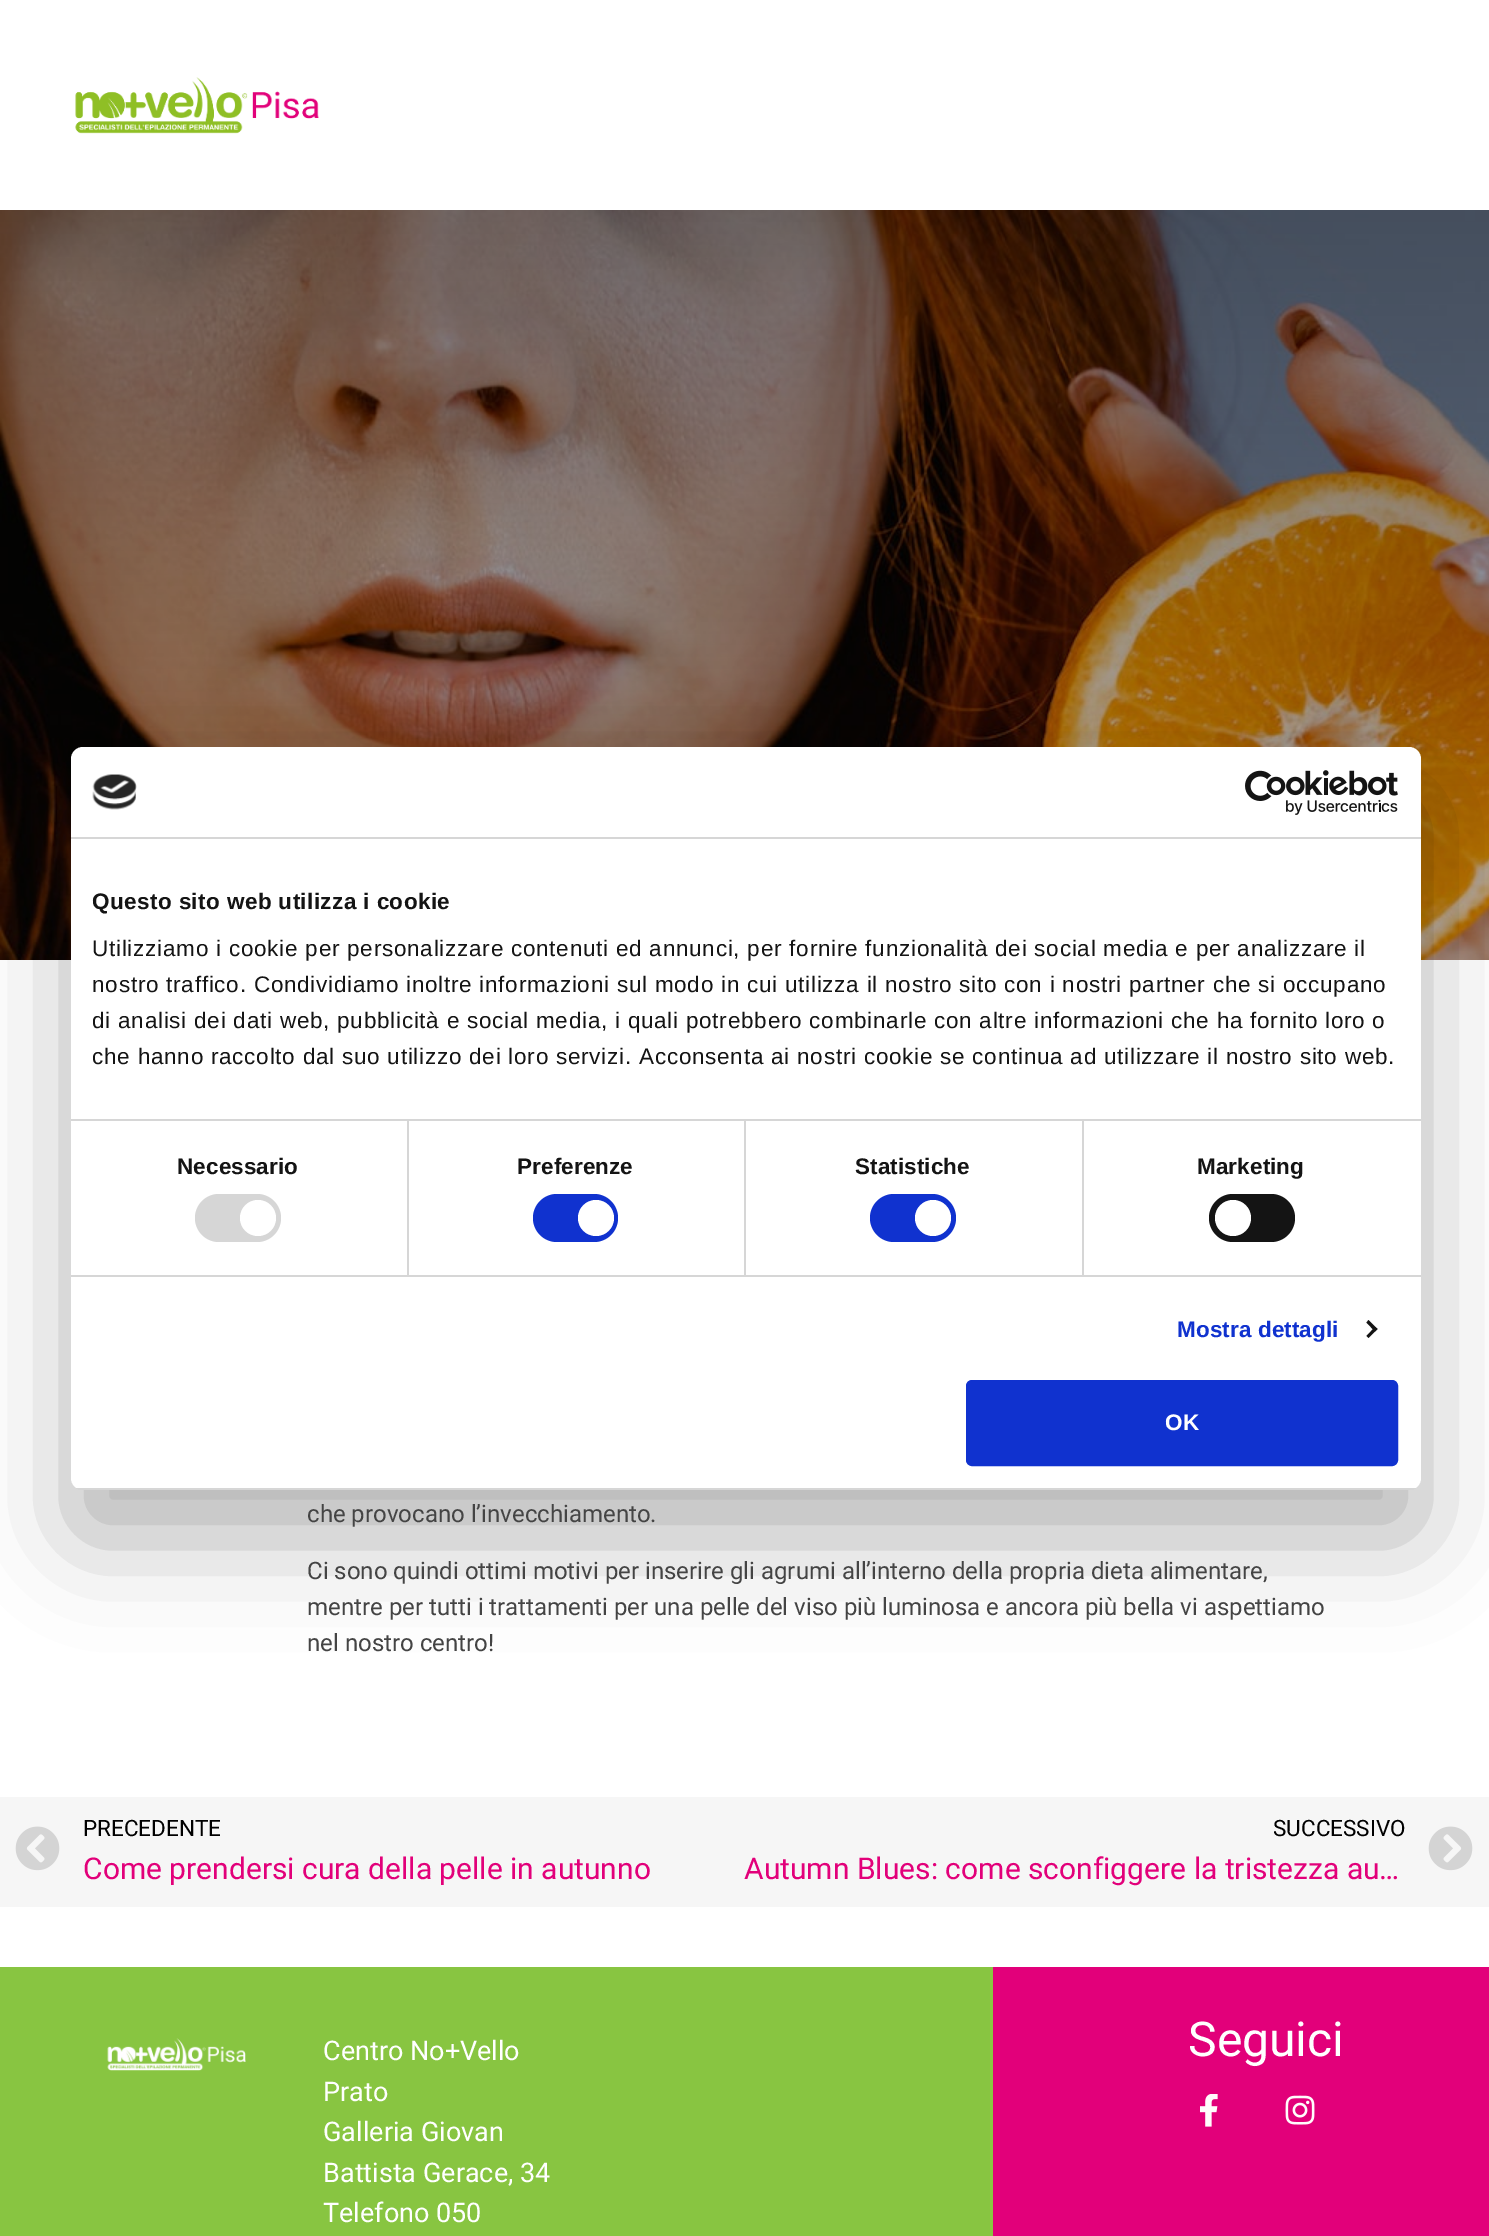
%!PS
<< /PageSize [1489 2236] /PageUsesTransparency true >> setpagedevice
/rgb { 3 { 255 div 3 1 roll } repeat setrgbcolor } def
/font { [ exch dup neg 0 0 3 -1 roll 0 0 ] selectfont } def
/alpha { dup .setfillconstantalpha .setstrokeconstantalpha } def
/circle { newpath 0 360 arc closepath } def
/roundrect { 5 dict begin { /r /h /w /y /x } { exch def } forall
  x r add y moveto x w add y 2 copy h add r arct x w add y h add x 1 index r arct
  x y h add x y r arct x y 2 copy exch w add exch r arct closepath end } def
/shadow { 12 dict begin { /a /b /q /h /w /y /x } { exch def } forall gsave /was 0 def
  9 -2 -9 { dup b mul 4 div /e exch def 1 sub .425 mul 2.718 exch exp 1 add a .99 .min exch div /now exch def
    1 1 now sub 1 was sub div sub alpha /was now def
    w h .min e 2 mul add 0 gt { x e sub y e sub w e 2 mul add h e 2 mul add
      q e add b .6 mul add w h .min 2 div e add .min 0 .max roundrect fill } if } for grestore end } def
/picture { 5 dict begin { /h /w /y /x /name } { exch def } forall
  gsave x y translate w h scale
  w h 8 [w 0 0 h 0 0] name (r) file false 3 colorimage grestore end } def
0 .pushpdf14devicefilter
0 2236 translate 1 -1 scale
4 setmiterlimit
255 255 255 rgb
0 0 1489 2236 rectfill
(img/1.rgb) 75 77 244 57 picture
(img/4.rgb) 0 210 1489 750 picture
0 0 0 rgb
71 795 1350 743 12 51 0.3 shadow
255 255 255 rgb
71 747 1350 743 12 roundrect fill
214 214 214 rgb
71 837 1350 2 rectfill
(img/2.rgb) 92 774 45 36 picture
(img/3.rgb) 1245 770 153 45 picture
[
  [71 1119 1350 2 214 214 214]
  [71 1275 1350 2 214 214 214]
  [407 1121 2 154 214 214 214]
] { aload pop rgb rectfill } forall
195 1194 86 48 24 roundrect fill
255 255 255 rgb
258 1218 18 circle fill
214 214 214 rgb
744 1121 2 154 rectfill
16 50 207 rgb
533 1194 85 48 24 roundrect fill
255 255 255 rgb
596 1218 18 circle fill
214 214 214 rgb
1082 1121 2 154 rectfill
16 50 207 rgb
870 1194 86 48 24 roundrect fill
255 255 255 rgb
933 1218 18 circle fill
20 20 20 rgb
1209 1194 86 48 24 roundrect fill
255 255 255 rgb
1233 1218 18 circle fill
20 20 20 rgb
1368.5 1320 moveto 1377.5 1329 lineto 1375 1331.5 lineto 1366.5 1322.5 lineto closepath fill
1375 1327 moveto 1377.5 1329 lineto 1368.5 1338 lineto 1366.5 1336 lineto closepath fill
gsave
71 747 1350 743 12 roundrect clip newpath
214 214 214 rgb
71 1488 1350 2 rectfill
grestore
16 50 207 rgb
967.5 1381.5 429 83 4.5 roundrect gsave fill grestore
3 setlinewidth
stroke
246 246 246 rgb
0 1797 1489 110 rectfill
(img/5.rgb) 15 1826 45 45 picture
(img/6.rgb) 1428 1826 45 45 picture
136 197 65 rgb
0 1967 993 269 rectfill
(img/7.rgb) 107 2038 139 33 picture
226 0 122 rgb
993 1967 496 269 rectfill
(img/8.rgb) 1200 2094 18 33 picture
(img/9.rgb) 1285 2095 30 30 picture
/LiberationSans-Bold 22.5 font
20 20 20 rgb
92 909 moveto 0.4 0 (Questo sito web utilizza i cookie) ashow
/LiberationSans-Regular 22.5 font
92 956 moveto 0.75 0 (Utilizziamo i cookie per personalizzare contenuti ed annunci, per fornire funzionalità dei social media e per analizzare il) ashow
92 992 moveto 0.75 0 (nostro traffico. Condividiamo inoltre informazioni sul modo in cui utilizza il nostro sito con i nostri partner che si occupano) ashow
92 1028 moveto 0.75 0 (di analisi dei dati web, pubblicità e social media, i quali potrebbero combinarle con altre informazioni che ha fornito loro o) ashow
92 1064 moveto 0.75 0 (che hanno raccolto dal suo utilizzo dei loro servizi. Acconsenta ai nostri cookie se continua ad utilizzare il nostro sito web.) ashow
/LiberationSans-Bold 22.5 font
177 1174 moveto 0.1 0 (Necessario) ashow
517 1174 moveto 0.1 0 (Preferenze) ashow
855 1174 moveto 0.1 0 (Statistiche) ashow
1197 1174 moveto 0.1 0 (Marketing) ashow
16 50 207 rgb
1177 1337 moveto 0.1 0 (Mostra dettagli) ashow
255 255 255 rgb
1165 1430 moveto (OK) show
/Roboto-Regular 24 font
68 68 68 rgb
[
  [(che provocano l’invecchiamento.) 307 1522]
  [(Ci sono quindi ottimi motivi per inserire gli agrumi all’interno della propria dieta alimentare,) 307 1579]
  [(mentre per tutti i trattamenti per una pelle del viso più luminosa e ancora più bella vi aspettiamo) 307 1615]
  [(nel nostro centro!) 307 1651]
] { aload pop moveto show } forall
/Roboto-Regular 22.5 font
0 0 0 rgb
83 1836 moveto (PRECEDENTE) show
/Roboto-Regular 30 font
226 0 122 rgb
83 1879 moveto (Come prendersi cura della pelle in autunno) show
/Roboto-Regular 22.5 font
0 0 0 rgb
1273 1836 moveto (SUCCESSIVO) show
/Roboto-Regular 30 font
226 0 122 rgb
744 1879 moveto (Autumn Blues: come sconfiggere la tristezza au…) show
/Roboto-Regular 27 font
255 255 255 rgb
[
  [(Centro No+Vello) 323 2060]
  [(Prato) 323 2101]
  [(Galleria Giovan) 323 2141]
  [(Battista Gerace, 34) 323 2182]
  [(Telefono 050) 323 2222]
] { aload pop moveto show } forall
/Roboto-Regular 48 font
1188 2056 moveto (Seguici) show
.poppdf14devicefilter showpage
